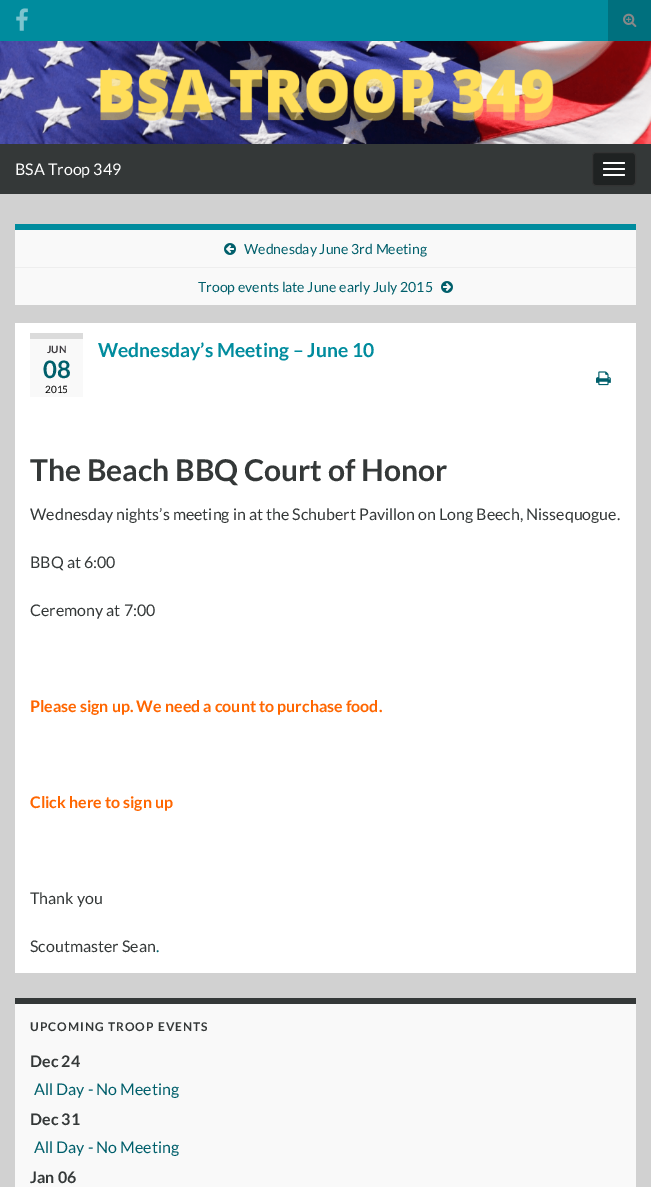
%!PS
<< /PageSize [651 1187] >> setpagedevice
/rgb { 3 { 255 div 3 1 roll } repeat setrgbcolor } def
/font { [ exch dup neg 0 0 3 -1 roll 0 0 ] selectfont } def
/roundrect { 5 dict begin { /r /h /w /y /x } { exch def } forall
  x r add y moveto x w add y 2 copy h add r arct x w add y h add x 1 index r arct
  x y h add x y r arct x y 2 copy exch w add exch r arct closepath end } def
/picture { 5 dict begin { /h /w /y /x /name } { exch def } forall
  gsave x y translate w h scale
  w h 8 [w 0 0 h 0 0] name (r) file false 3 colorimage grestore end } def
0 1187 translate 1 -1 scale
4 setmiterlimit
0 140 158 rgb
0 0 651 1187 rectfill
(img/1.rgb) 16 8 12 23 picture
0 112 126 rgb
608 0 43 41 rectfill
(img/2.rgb) 623 13 14 14 picture
(img/3.rgb) 0 41 651 103 picture
52 56 56 rgb
0 144 651 50 rectfill
31 34 34 rgb
592.5 152.5 43 33 3.5 roundrect gsave fill grestore
51 51 51 rgb
stroke
255 255 255 rgb
603 162 22 2 1 roundrect fill
603 168 22 2 1 roundrect fill
603 174 22 2 1 roundrect fill
[
  [0 194 651 993 209 209 209]
  [15 230 621 75 249 249 249]
  [15 224 621 6 0 140 158]
] { aload pop rgb rectfill } forall
(img/4.rgb) 224 243 12 12 picture
238 238 238 rgb
15 267 621 1 rectfill
(img/5.rgb) 441 281 12 12 picture
[
  [15 323 621 650 255 255 255]
  [30 339 53 58 249 249 249]
  [30 333 53 6 219 219 219]
] { aload pop rgb rectfill } forall
(img/6.rgb) 596 371 15 15 picture
249 249 249 rgb
15 1004 621 183 rectfill
52 56 56 rgb
15 998 621 6 rectfill
/Lato-Regular 16 font
255 255 255 rgb
15 175 moveto (BSA Troop 349) show
/Lato-Regular 14 font
0 95 107 rgb
244 254 moveto (Wednesday June 3rd Meeting) show
198 292 moveto (Troop events late June early July 2015) show
/Lato-Bold 10 font
59 56 61 rgb
47 353 moveto (JUN) show
/Lato-Bold 24 font
0 95 107 rgb
43 378 moveto (08) show
/Lato-Regular 10 font
0 0 0 rgb
45 393 moveto (2015) show
/Lato-Bold 19.25 font
0 140 158 rgb
98 357 moveto (Wednesday’s Meeting – June 10) show
/Lato-Bold 30 font
52 56 56 rgb
30 481 moveto (The Beach BBQ Court of Honor) show
/Lato-Regular 16 font
[
  [(Wednesday nights’s meeting in at the Schubert Pavillon on Long Beech, Nissequogue.) 30 520]
  [(BBQ at 6:00) 30 568]
  [(Ceremony at 7:00) 30 616]
] { aload pop moveto show } forall
/Lato-Bold 16 font
255 102 0 rgb
30 712 moveto (Please sign up. We need a count to purchase food.) show
30 808 moveto (Click here to sign up) show
/Lato-Regular 16 font
52 56 56 rgb
30 904 moveto (Thank you) show
30 952 moveto (Scoutmaster Sean) show
0 95 107 rgb
156 952 moveto (.) show
/Lato-Bold 12 font
52 56 56 rgb
30 1031 moveto 1 0 (UPCOMING TROOP EVENTS) ashow
/Lato-Bold 16 font
30 1067 moveto (Dec 24) show
/Lato-Regular 16 font
0 95 107 rgb
34 1095 moveto (All Day - No Meeting) show
/Lato-Bold 16 font
52 56 56 rgb
30 1125 moveto (Dec 31) show
/Lato-Regular 16 font
0 95 107 rgb
34 1153 moveto (All Day - No Meeting) show
/Lato-Bold 16 font
52 56 56 rgb
30 1183 moveto (Jan 06) show
showpage
